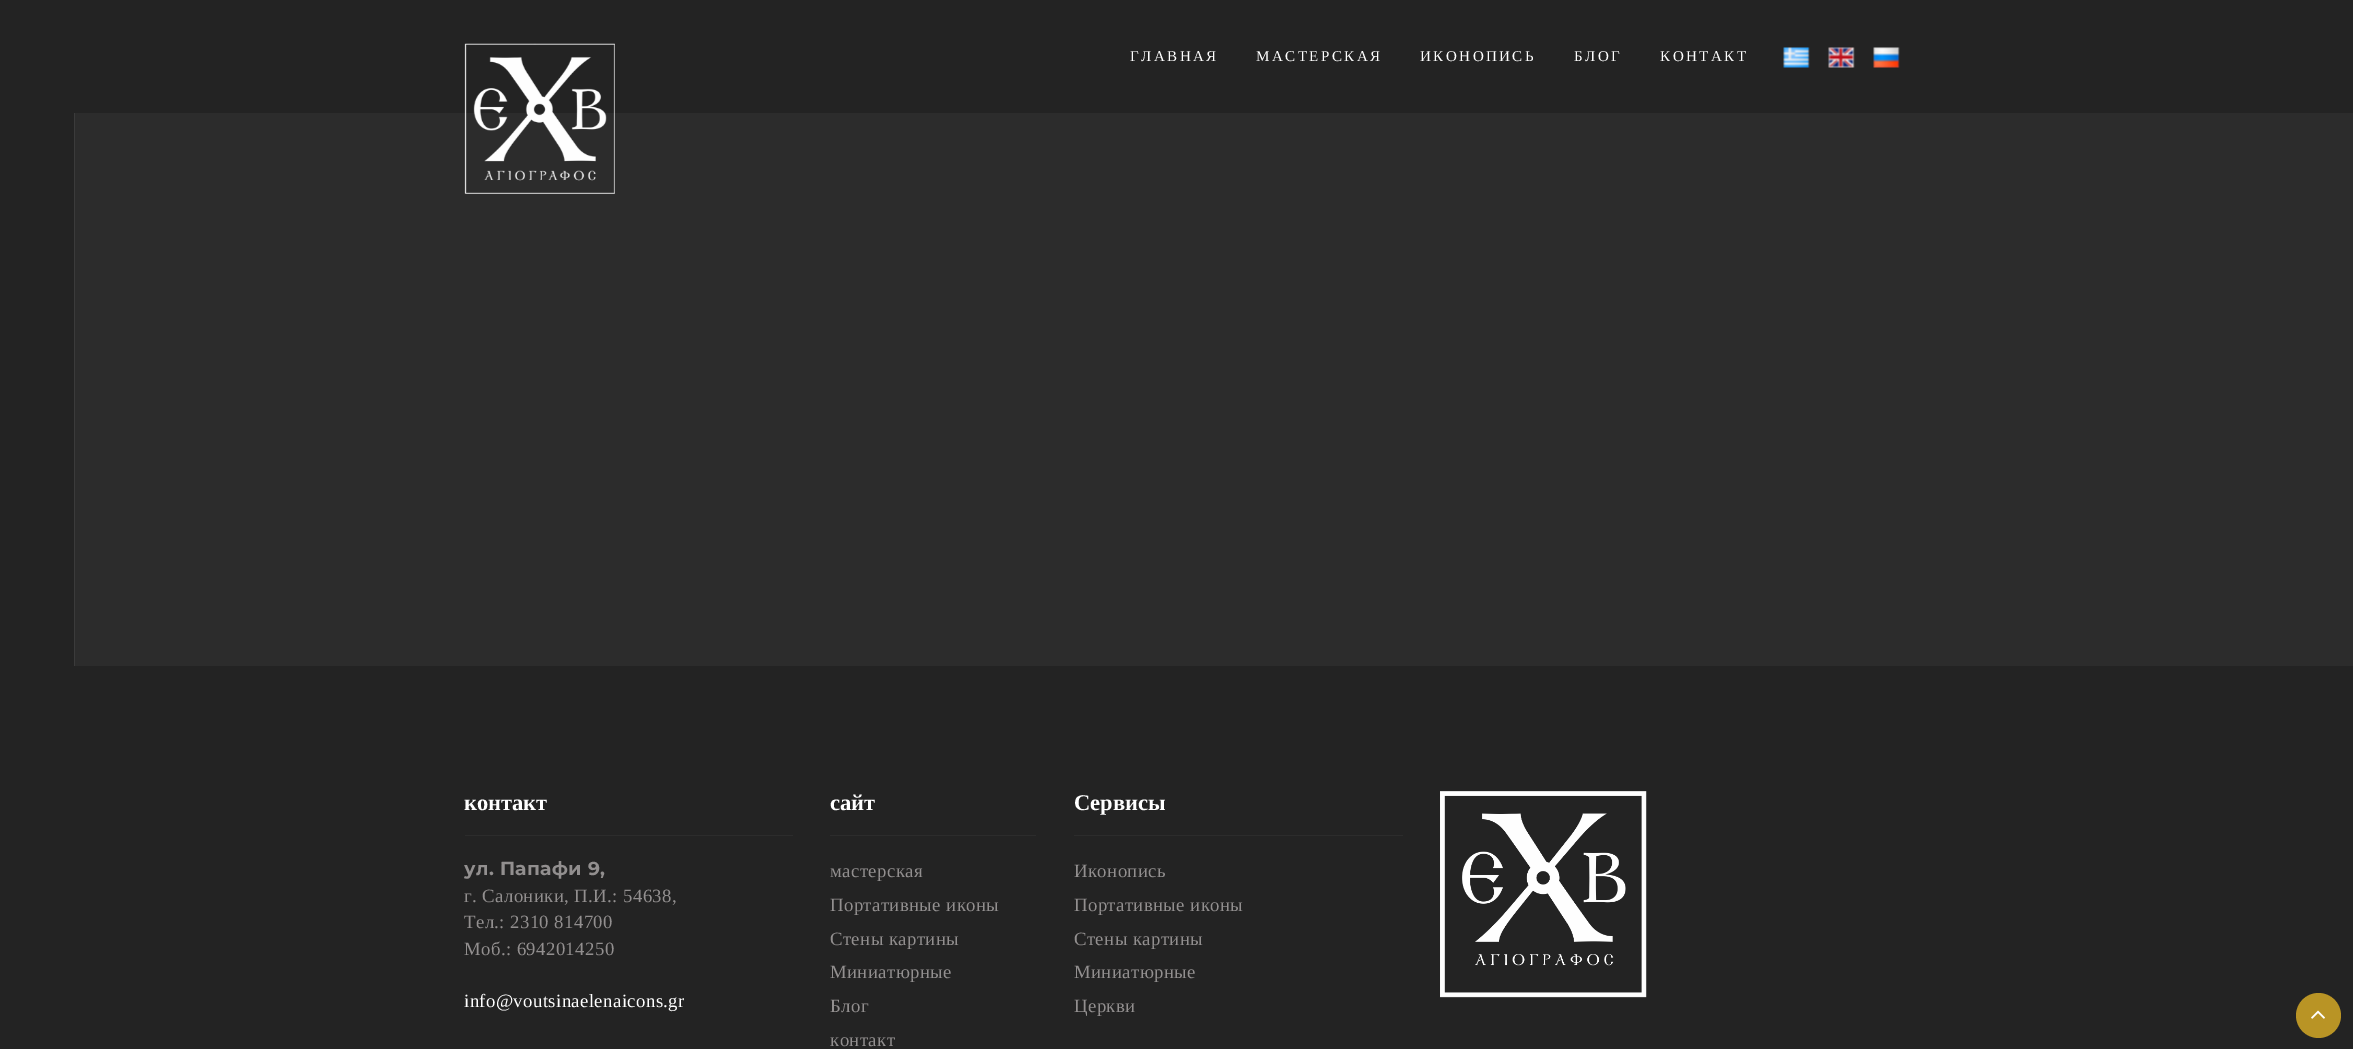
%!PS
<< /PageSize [2353 1049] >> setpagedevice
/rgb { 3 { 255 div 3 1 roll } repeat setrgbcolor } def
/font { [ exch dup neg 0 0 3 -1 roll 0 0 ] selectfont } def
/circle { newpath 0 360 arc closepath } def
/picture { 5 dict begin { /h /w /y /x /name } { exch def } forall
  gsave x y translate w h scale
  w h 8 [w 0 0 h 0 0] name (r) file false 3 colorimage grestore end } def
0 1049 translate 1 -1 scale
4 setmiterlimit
35 35 35 rgb
0 0 2353 1049 rectfill
44 44 44 rgb
75 113 2278 553 rectfill
(img/1.rgb) 464 43 151 151 picture
(img/2.rgb) 1783 47 27 21 picture
(img/3.rgb) 1828 47 27 21 picture
(img/4.rgb) 1873 47 27 21 picture
[
  [74 113 1 553 59 59 59]
  [465 835 328 1 44 44 44]
  [830 835 206 1 44 44 44]
  [1074 835 329 1 44 44 44]
] { aload pop rgb rectfill } forall
(img/5.rgb) 1440 791 207 207 picture
185 148 37 rgb
2318.5 1015.5 22.5 circle fill
(img/6.rgb) 2311 1010 14 9 picture
/LiberationSerif-Regular 15 font
255 255 255 rgb
1130 61 moveto 2.5 0 (ГЛАВНАЯ) ashow
1256 61 moveto 2.5 0 (МАСТЕРСКАЯ) ashow
1420 61 moveto 2.5 0 (ИКОНОПИСЬ) ashow
1574 61 moveto 2.5 0 (БЛОГ) ashow
1660 61 moveto 2.5 0 (КОНТАКТ) ashow
/LiberationSerif-Bold 22.5 font
464 810 moveto (контакт) show
/Montserrat-Bold 18.75 font
146 143 143 rgb
464 875 moveto 0.4 0 (ул. Папафи 9,) ashow
/LiberationSerif-Regular 18.75 font
464 902 moveto 0.4 0 (г. Салоники, П.И.: 54638,) ashow
464 928 moveto 0.4 0 (Τел.: 2310 814700) ashow
464 955 moveto 0.4 0 (Моб.: 6942014250) ashow
255 255 255 rgb
464 1007 moveto 0.4 0 (info@voutsinaelenaicons.gr) ashow
/LiberationSerif-Bold 22.5 font
830 810 moveto (сайт) show
/LiberationSerif-Regular 18.75 font
146 143 143 rgb
830 877 moveto 0.4 0 (мастерская) ashow
830 911 moveto 0.4 0 (Портативные иконы) ashow
830 945 moveto 0.4 0 (Стены картины) ashow
830 978 moveto 0.4 0 (Миниатюрные) ashow
830 1012 moveto 0.4 0 (Блог) ashow
830 1046 moveto 0.4 0 (контакт) ashow
/LiberationSerif-Bold 22.5 font
255 255 255 rgb
1074 810 moveto (Сервисы) show
/LiberationSerif-Regular 18.75 font
146 143 143 rgb
1074 877 moveto 0.4 0 (Иконопись) ashow
1074 911 moveto 0.4 0 (Портативные иконы) ashow
1074 945 moveto 0.4 0 (Стены картины) ashow
1074 978 moveto 0.4 0 (Миниатюрные) ashow
1074 1012 moveto 0.4 0 (Церкви) ashow
showpage
